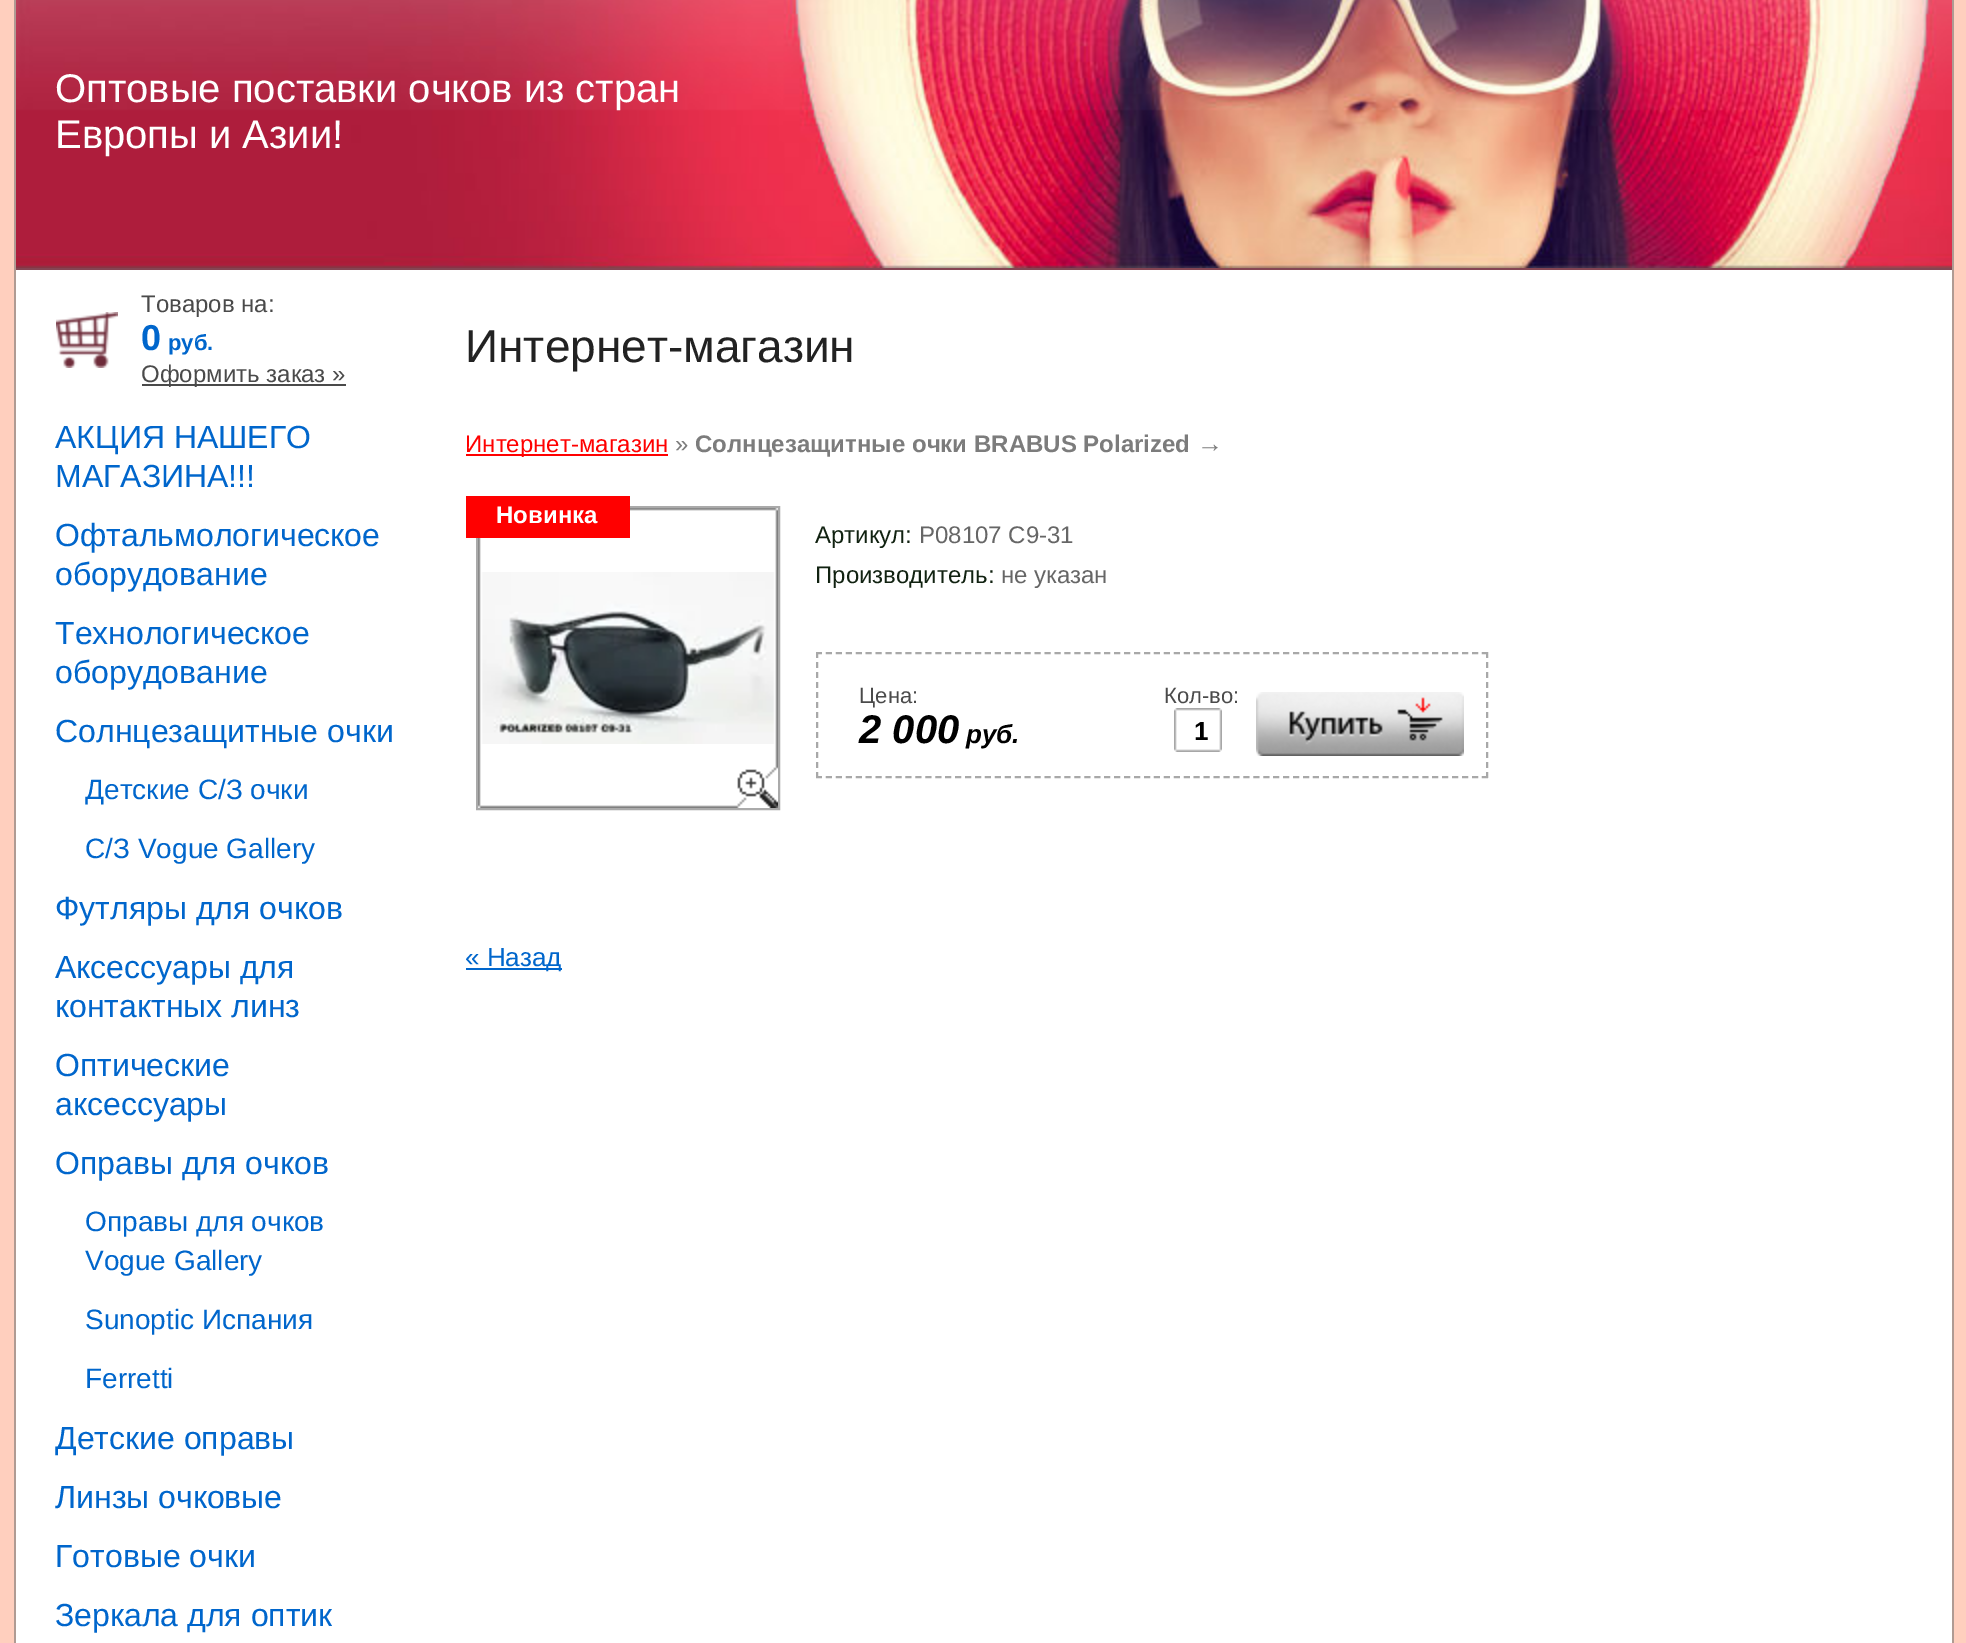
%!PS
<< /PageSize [1966 1643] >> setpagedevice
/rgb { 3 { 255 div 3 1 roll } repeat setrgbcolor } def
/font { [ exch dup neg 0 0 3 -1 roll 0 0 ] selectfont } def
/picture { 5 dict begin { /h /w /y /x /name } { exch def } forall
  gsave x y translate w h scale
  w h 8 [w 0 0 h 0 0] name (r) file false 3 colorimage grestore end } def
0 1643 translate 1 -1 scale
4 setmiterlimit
255 207 190 rgb
0 0 1966 1643 rectfill
[
  [1952 0 2 1643 176 155 147]
  [14 0 2 1643 176 155 147]
  [16 268 1936 2 132 69 83]
] { aload pop rgb rectfill } forall
(img/1.rgb) 16 0 1936 268 picture
255 255 255 rgb
16 270 1936 1373 rectfill
(img/2.rgb) 56 312 62 56 picture
74 74 74 rgb
142 384 204 2 rectfill
255 0 0 rgb
466 454 202 2 rectfill
(img/3.rgb) 478 508 300 300 picture
170 170 170 rgb
2 setlinewidth
477 507 302 302 rectstroke
(img/4.rgb) 737 767 38 38 picture
255 0 0 rgb
466 496 164 42 rectfill
168 168 168 rgb
[6 3.94] 0 setdash
816 653 moveto 1488 653 lineto stroke
[6 4] 0 setdash
1487 652 moveto 1487 778 lineto stroke
[6 3.94] 0 setdash
816 777 moveto 1488 777 lineto stroke
[6 4] 0 setdash
817 652 moveto 817 778 lineto stroke
(img/5.rgb) 1174 708 48 44 picture
(img/6.rgb) 1256 692 208 64 picture
0 102 204 rgb
466 968 96 2 rectfill
/LiberationSans-Regular 40 font
255 255 255 rgb
55 102 moveto (Оптовые поставки очков из стран) show
55 148 moveto (Европы и Азии!) show
/LiberationSans-Regular 24 font
74 74 74 rgb
141 312 moveto (Товаров на:) show
/LiberationSans-Bold 36 font
0 102 204 rgb
141 350 moveto (0) show
/LiberationSans-Bold 22 font
168 350 moveto (руб.) show
/LiberationSans-Regular 24 font
74 74 74 rgb
141 382 moveto (Оформить заказ ») show
/LiberationSans-Regular 32 font
0 102 204 rgb
[
  [(АКЦИЯ НАШЕГО) 55 448]
  [(МАГАЗИНА!!!) 55 487]
  [(Офтальмологическое) 55 546]
  [(оборудование) 55 585]
  [(Технологическое) 55 644]
  [(оборудование) 55 683]
  [(Солнцезащитные очки) 55 742]
] { aload pop moveto show } forall
/LiberationSans-Regular 28 font
85 799 moveto (Детские С/З очки) show
85 858 moveto (С/З Vogue Gallery) show
/LiberationSans-Regular 32 font
[
  [(Футляры для очков) 55 919]
  [(Аксессуары для) 55 978]
  [(контактных линз) 55 1017]
  [(Оптические) 55 1076]
  [(аксессуары) 55 1115]
  [(Оправы для очков) 55 1174]
] { aload pop moveto show } forall
/LiberationSans-Regular 28 font
[
  [(Оправы для очков) 85 1231]
  [(Vogue Gallery) 85 1270]
  [(Sunoptic Испания) 85 1329]
  [(Ferretti) 85 1388]
] { aload pop moveto show } forall
/LiberationSans-Regular 32 font
[
  [(Детские оправы) 55 1449]
  [(Линзы очковые) 55 1508]
  [(Готовые очки) 55 1567]
  [(Зеркала для оптик) 55 1626]
] { aload pop moveto show } forall
/LiberationSans-Regular 46 font
34 34 34 rgb
465 362 moveto (Интернет-магазин) show
/LiberationSans-Regular 24 font
255 0 0 rgb
465 452 moveto (Интернет-магазин) show
124 124 124 rgb
675 452 moveto (») show
/LiberationSans-Bold 24 font
695 452 moveto (Солнцезащитные очки BRABUS Polarized) show
/LiberationSans-Regular 26 font
1197 452 moveto (→) show
/LiberationSans-Bold 24 font
255 255 255 rgb
496 523 moveto (Новинка) show
/LiberationSans-Regular 24 font
17 34 17 rgb
815 543 moveto (Артикул:) show
102 102 102 rgb
919 543 moveto (P08107 C9-31) show
17 34 17 rgb
815 583 moveto (Производитель:) show
102 102 102 rgb
1001 583 moveto (не указан) show
/LiberationSans-Regular 22 font
74 74 74 rgb
859 703 moveto (Цена:) show
/LiberationSans-BoldItalic 40 font
0 0 0 rgb
859 743 moveto (2 000) show
/LiberationSans-BoldItalic 26 font
966 743 moveto (руб.) show
/LiberationSans-Regular 22 font
74 74 74 rgb
1164 703 moveto (Кол-во:) show
/LiberationSans-Bold 26 font
0 0 0 rgb
1194 740 moveto (1) show
/LiberationSans-Regular 26 font
0 102 204 rgb
465 966 moveto (« Назад) show
showpage
